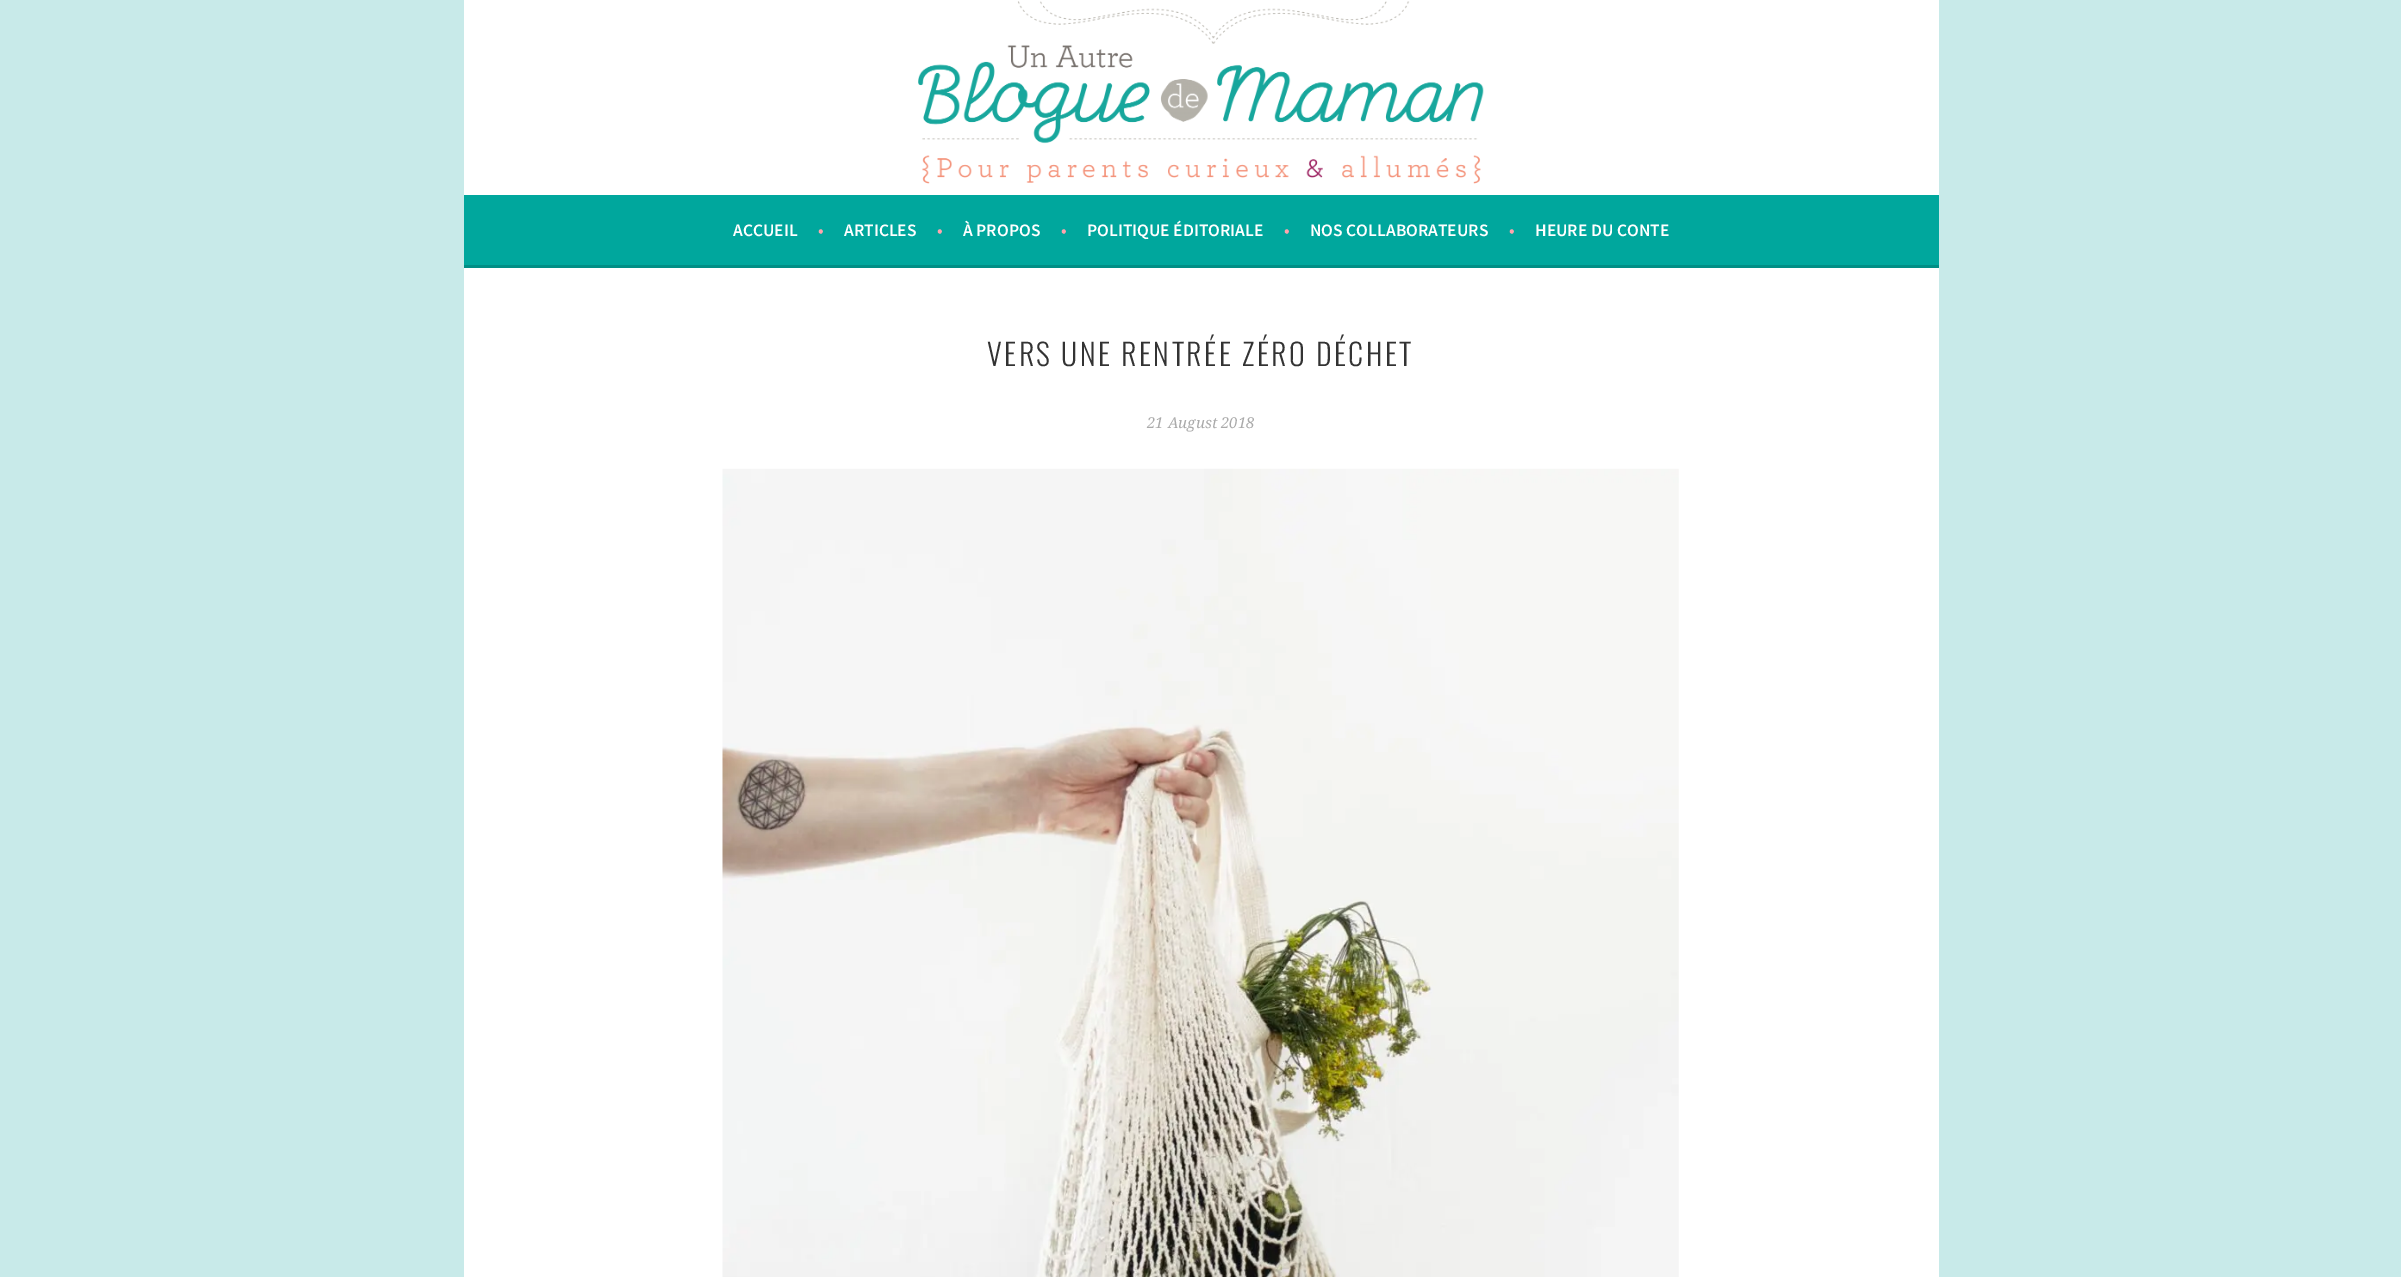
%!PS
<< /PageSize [2401 1277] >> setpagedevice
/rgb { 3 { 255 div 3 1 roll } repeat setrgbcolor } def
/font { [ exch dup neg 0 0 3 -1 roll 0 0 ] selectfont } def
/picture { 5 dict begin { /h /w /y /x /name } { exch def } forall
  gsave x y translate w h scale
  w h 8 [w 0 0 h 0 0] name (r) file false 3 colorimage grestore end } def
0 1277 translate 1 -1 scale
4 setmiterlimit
200 234 233 rgb
0 0 2401 1277 rectfill
255 255 255 rgb
464 0 1475 195 rectfill
(img/1.rgb) 918 1 566 183 picture
[
  [464 195 1475 70 0 167 157]
  [464 265 1475 3 0 142 133]
  [464 268 1475 1009 255 255 255]
] { aload pop rgb rectfill } forall
(img/2.rgb) 722 468 957 809 picture
/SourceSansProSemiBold-SemiBold 17.5 font
733 236 moveto (ACCUEIL) show
255 164 173 rgb
818 236 moveto (•) show
255 255 255 rgb
844 236 moveto (ARTICLES) show
255 164 173 rgb
937 236 moveto (•) show
255 255 255 rgb
963 236 moveto (À PROPOS) show
255 164 173 rgb
1061 236 moveto (•) show
255 255 255 rgb
1087 236 moveto (POLITIQUE ÉDITORIALE) show
255 164 173 rgb
1284 236 moveto (•) show
255 255 255 rgb
1310 236 moveto (NOS COLLABORATEURS) show
255 164 173 rgb
1509 236 moveto (•) show
255 255 255 rgb
1535 236 moveto (HEURE DU CONTE) show
/Oswald-Light 30 font
51 51 51 rgb
987 366 moveto 2.5 0 (VERS UNE RENTRÉE ZÉRO DÉCHET) ashow
/DroidSerif-Italic 15 font
170 170 170 rgb
1147 428 moveto (21 August 2018) show
showpage
